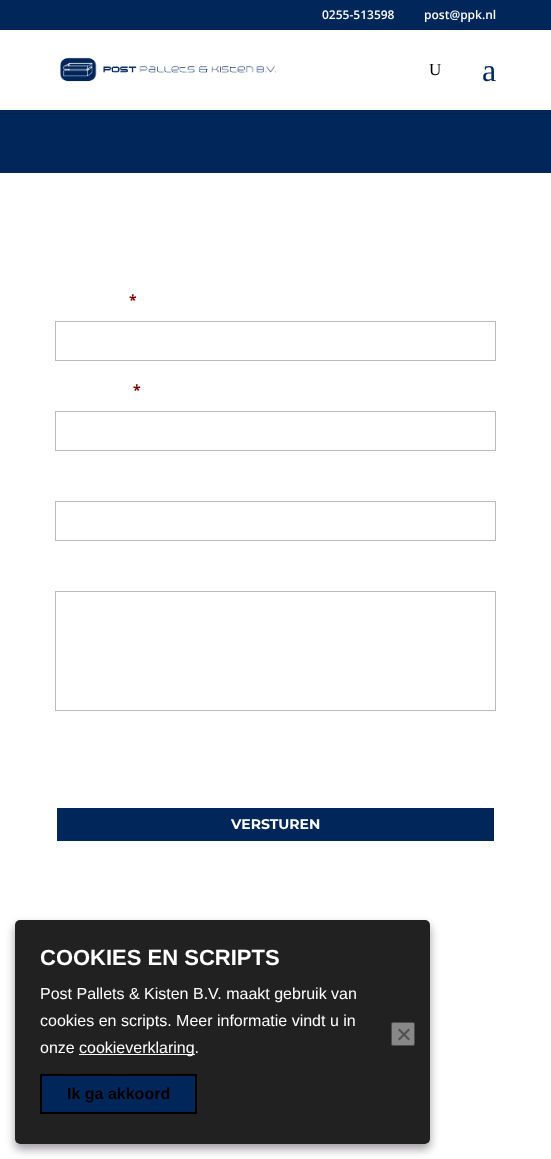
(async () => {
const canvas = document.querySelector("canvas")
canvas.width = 551
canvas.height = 1159
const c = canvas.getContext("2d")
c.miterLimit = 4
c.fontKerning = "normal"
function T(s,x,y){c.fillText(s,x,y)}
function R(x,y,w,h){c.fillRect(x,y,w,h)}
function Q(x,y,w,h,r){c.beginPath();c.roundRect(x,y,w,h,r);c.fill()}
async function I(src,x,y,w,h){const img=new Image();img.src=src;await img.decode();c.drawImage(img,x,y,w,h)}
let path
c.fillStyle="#fff"
R(0,0,551,1159)
c.fillStyle="#00265a"
R(0,0,551,173)
c.font="600 12px Open Sans"
c.fillStyle="#fff"
T("0255-513598",322,19)
T("post@ppk.nl",424,19)
c.fillStyle="#002251"
R(0,113,551,1)
c.fillStyle="#fff"
R(0,30,551,80)
await I("1.png",60,57,216,25)
c.font="17px Liberation Serif"
c.fillStyle="#000"
T("U",429,75)
c.font="32px Liberation Serif"
c.fillStyle="#00265a"
T("a",482,81)
c.font="bold 14px Open Sans"
c.fillStyle="#790000"
T("*",129,305)
c.strokeStyle="#bbb"
c.strokeRect(55.5,321.5,440,39)
T("*",133,395)
c.strokeRect(55.5,411.5,440,39)
c.strokeRect(55.5,501.5,440,39)
c.strokeRect(55.5,591.5,440,119)
c.fillStyle="#00265a"
R(57,808,437,33)
c.font="bold 14px Montserrat"
c.fillStyle="#fff"
T("VERSTUREN",231,829)
c.save()
path = new Path2D("M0 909h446v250h-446zm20 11h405c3 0 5 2 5 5v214c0 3-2 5-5 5h-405c-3 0-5-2-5-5v-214c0-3 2-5 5-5z")
c.clip(path,"evenodd")
c.fillStyle="#6b676da6"
c.filter="blur(5px)"
c.beginPath()
c.roundRect(15,925,415,224,5)
c.fill()
c.filter="none"
c.restore()
c.fillStyle="#000000de"
Q(15,920,415,224,5)
c.font="bold 22px Liberation Sans"
c.fillStyle="#fff"
T("COOKIES EN SCRIPTS",40,965)
c.font="16px Liberation Sans"
T("Post Pallets & Kisten B.V. maakt gebruik van",40,999)
T("cookies en scripts. Meer informatie vindt u in",40,1026)
T("onze",40,1053)
R(79,1054,116,1)
T("cookieverklaring.",79,1053)
c.fillStyle="#888"
c.beginPath()
c.roundRect(391.5,1022.5,23,23,1.5)
c.fill()
c.strokeStyle="#4c4c4c"
c.stroke()
c.fillStyle="#515151"
path = new Path2D("M408.5 1028.5l1.5 1.5l-10.5 10.5l-1.5-1.5z")
c.fill(path)
path = new Path2D("M398 1030l1.5-1.5l10.5 10.5l-1.5 1.5z")
c.fill(path)
c.fillStyle="#00265a"
c.beginPath()
c.rect(41,1075,155,38)
c.fill()
c.strokeStyle="#000"
c.lineWidth=2
c.stroke()
c.font="bold 16px Liberation Sans"
c.fillStyle="#000"
T("Ik ga akkoord",67,1099)
})()
